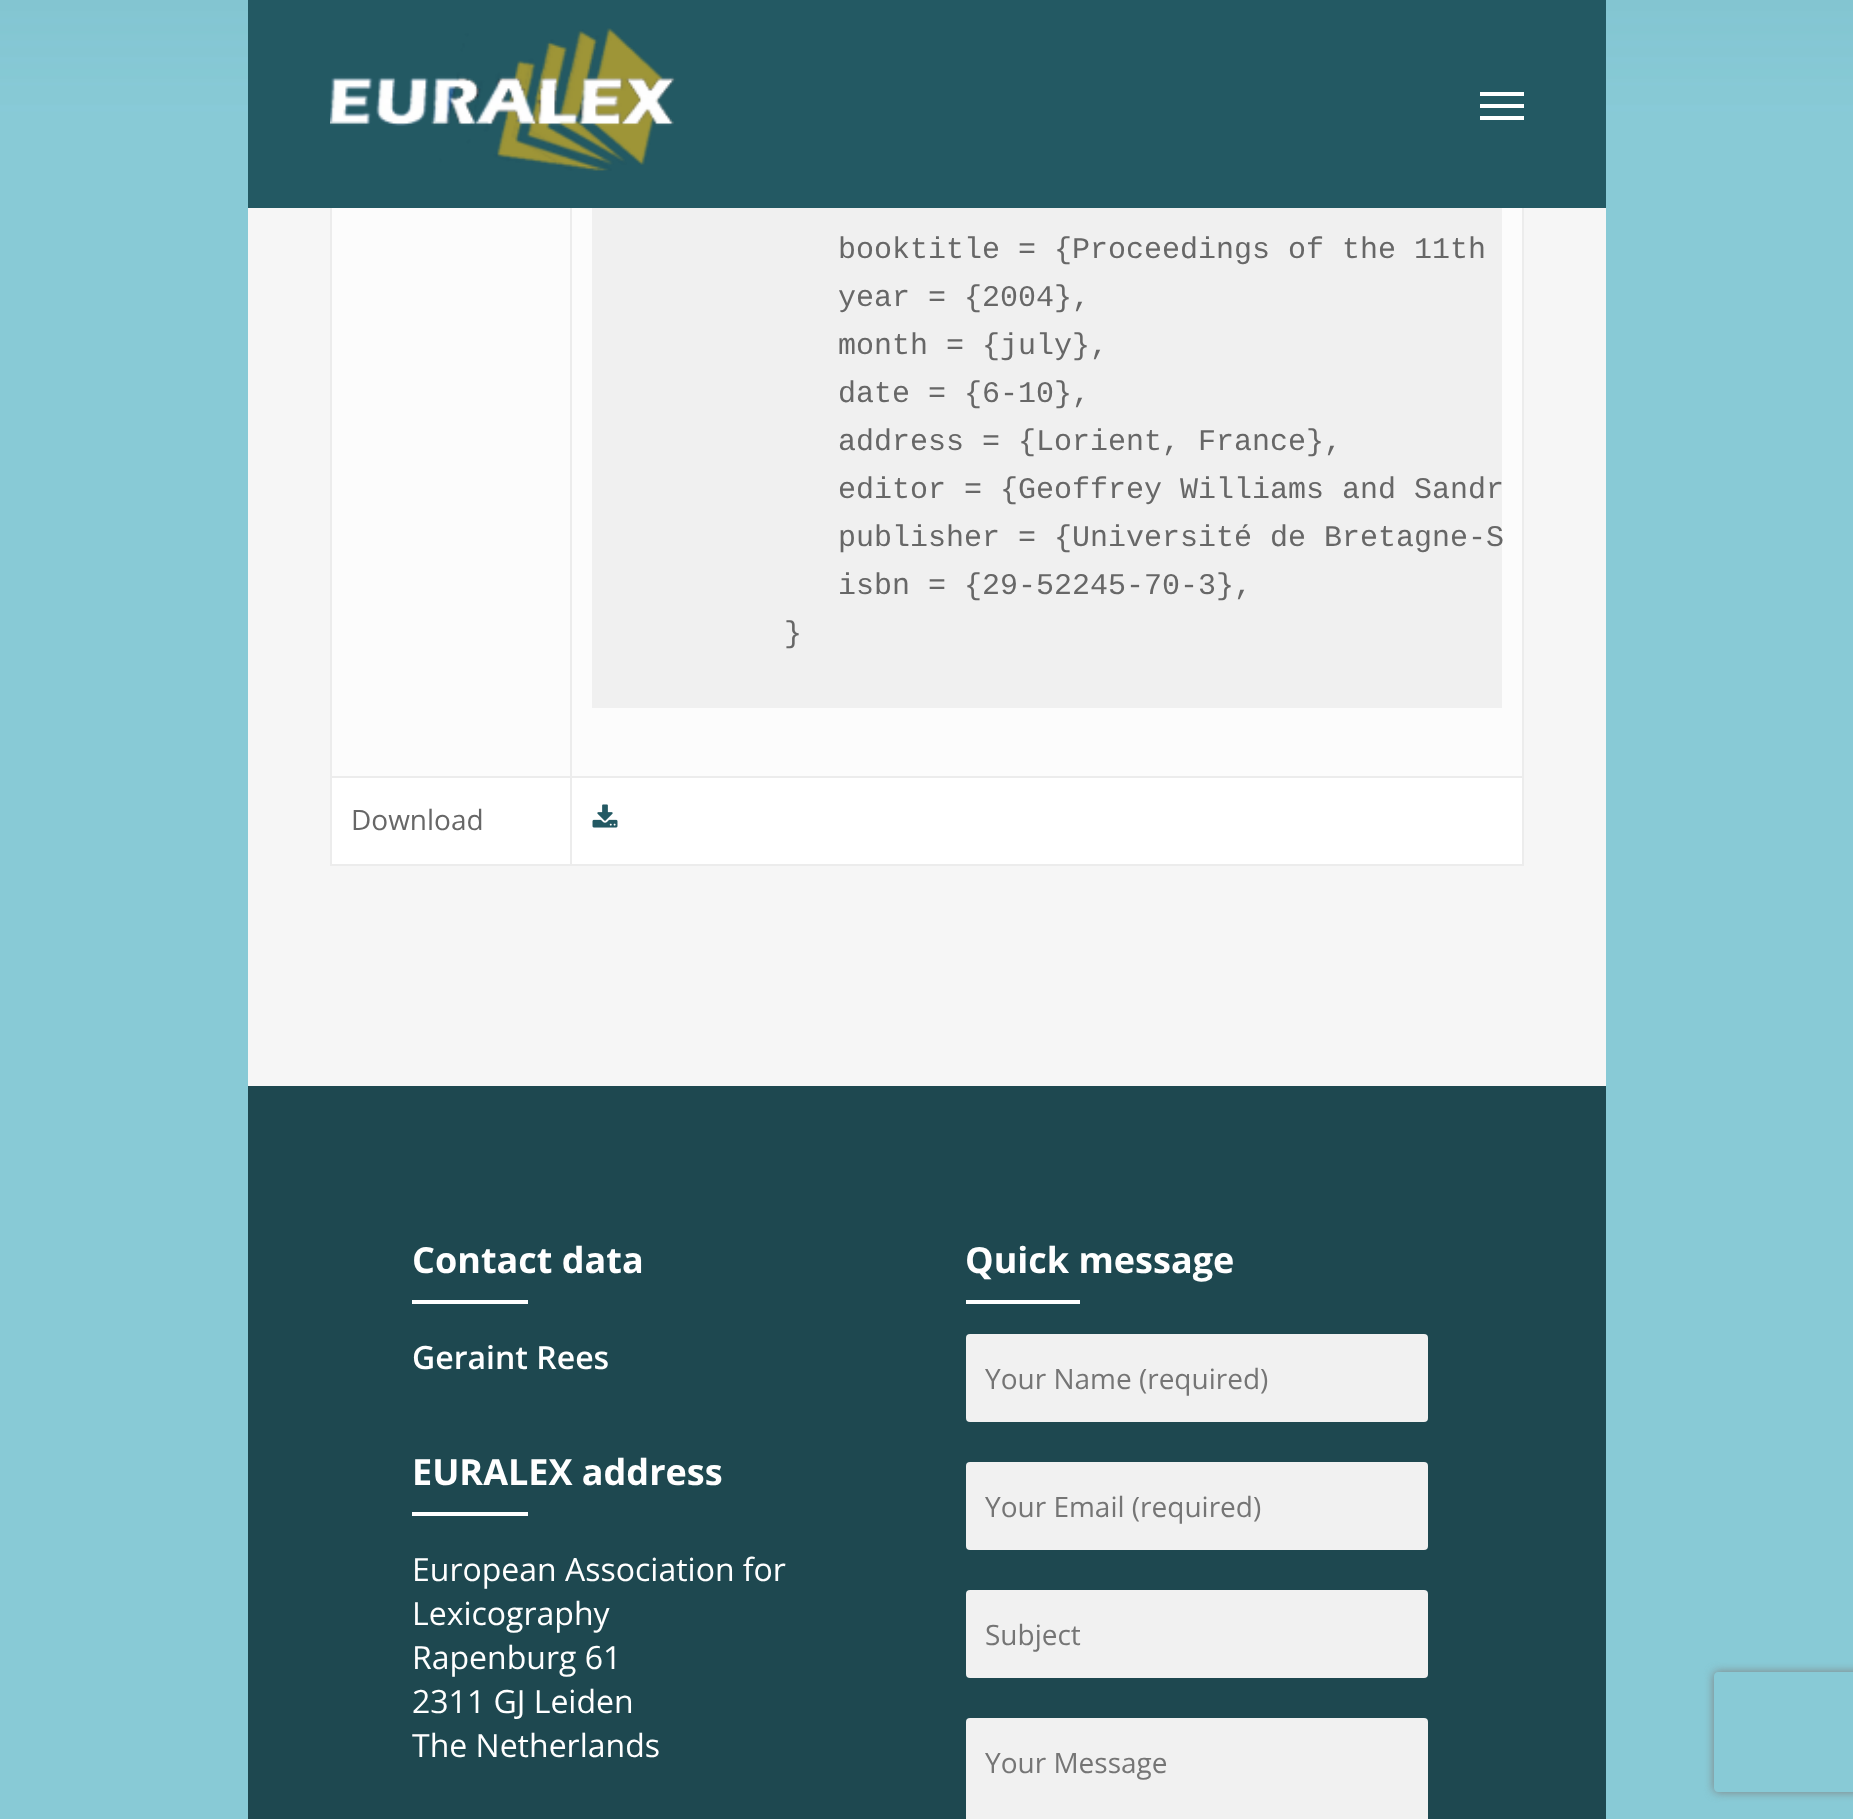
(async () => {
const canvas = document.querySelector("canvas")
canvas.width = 1853
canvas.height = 1819
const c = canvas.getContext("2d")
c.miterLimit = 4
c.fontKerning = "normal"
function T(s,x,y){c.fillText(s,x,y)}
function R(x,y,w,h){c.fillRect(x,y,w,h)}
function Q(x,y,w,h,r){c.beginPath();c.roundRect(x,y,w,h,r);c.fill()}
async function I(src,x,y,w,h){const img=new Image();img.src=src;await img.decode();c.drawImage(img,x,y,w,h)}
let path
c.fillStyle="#fff"
R(0,0,1853,1819)
await I("1.png",0,0,1853,1819)
c.fillStyle="#235963"
R(248,0,1358,208)
await I("2.png",330,28,346,143)
c.fillStyle="#fff"
R(1480,92,44,4)
R(1480,116,44,4)
R(1480,104,44,4)
c.fillStyle="#f6f6f6"
R(248,208,1358,878)
c.fillStyle="#fff"
R(332,778,1190,86)
c.fillStyle="#fcfcfc"
R(332,208,1190,568)
c.fillStyle="#ececec"
R(1522,208,2,658)
R(570,864,954,2)
R(570,776,2,90)
R(570,776,954,2)
R(570,208,2,570)
R(330,864,242,2)
R(330,776,2,90)
R(330,776,242,2)
R(330,208,2,570)
c.fillStyle="#f0f0f0"
R(592,208,910,500)
c.font="30px Liberation Mono"
c.fillStyle="#676767"
T("booktitle = {Proceedings of the 11th",838,258)
T("year = {2004},",838,306)
T("month = {july},",838,354)
T("date = {6-10},",838,402)
T("address = {Lorient, France},",838,450)
T("editor = {Geoffrey Williams and Sandr",838,498)
T("publisher = {Université de Bretagne-S",838,546)
T("isbn = {29-52245-70-3},",838,594)
T("}",784,642)
c.font="28px Open Sans"
T("Download",351,830)
await I("3.png",592,804,26,24)
c.fillStyle="#1e4850"
R(248,1086,1358,733)
c.font="bold 36px Open Sans"
c.fillStyle="#fff"
T("Contact data",412,1273)
R(412,1300,116,4)
c.font="600 32px Open Sans"
T("Geraint Rees",412,1369)
c.font="bold 36px Open Sans"
T("EURALEX address",412,1485)
R(412,1512,116,4)
c.font="32px Open Sans"
T("European Association for",412,1581)
T("Lexicography",412,1625)
T("Rapenburg 61",412,1669)
T("2311 GJ Leiden",412,1713)
T("The Netherlands",412,1757)
c.font="bold 36px Open Sans"
T("Quick message",965,1273)
R(966,1300,114,4)
c.fillStyle="#f1f1f1"
Q(966,1334,462,88,4)
c.font="28px Open Sans"
c.fillStyle="#757575"
T("Your Name (required)",985,1389)
c.fillStyle="#f1f1f1"
Q(966,1462,462,88,4)
c.fillStyle="#757575"
T("Your Email (required)",985,1517)
c.fillStyle="#f1f1f1"
Q(966,1590,462,88,4)
c.fillStyle="#757575"
T("Subject",985,1645)
c.fillStyle="#f1f1f1"
Q(966,1718,462,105,4)
c.fillStyle="#757575"
T("Your Message",985,1773)
c.save()
path = new Path2D("M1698 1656h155v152h-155zm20 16h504c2 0 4 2 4 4v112c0 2-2 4-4 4h-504c-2 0-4-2-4-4v-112c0-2 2-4 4-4z")
c.clip(path,"evenodd")
c.fillStyle="#808080"
c.filter="blur(5px)"
c.beginPath()
c.roundRect(1714,1672,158,120,4)
c.fill()
c.filter="none"
c.restore()
})()
